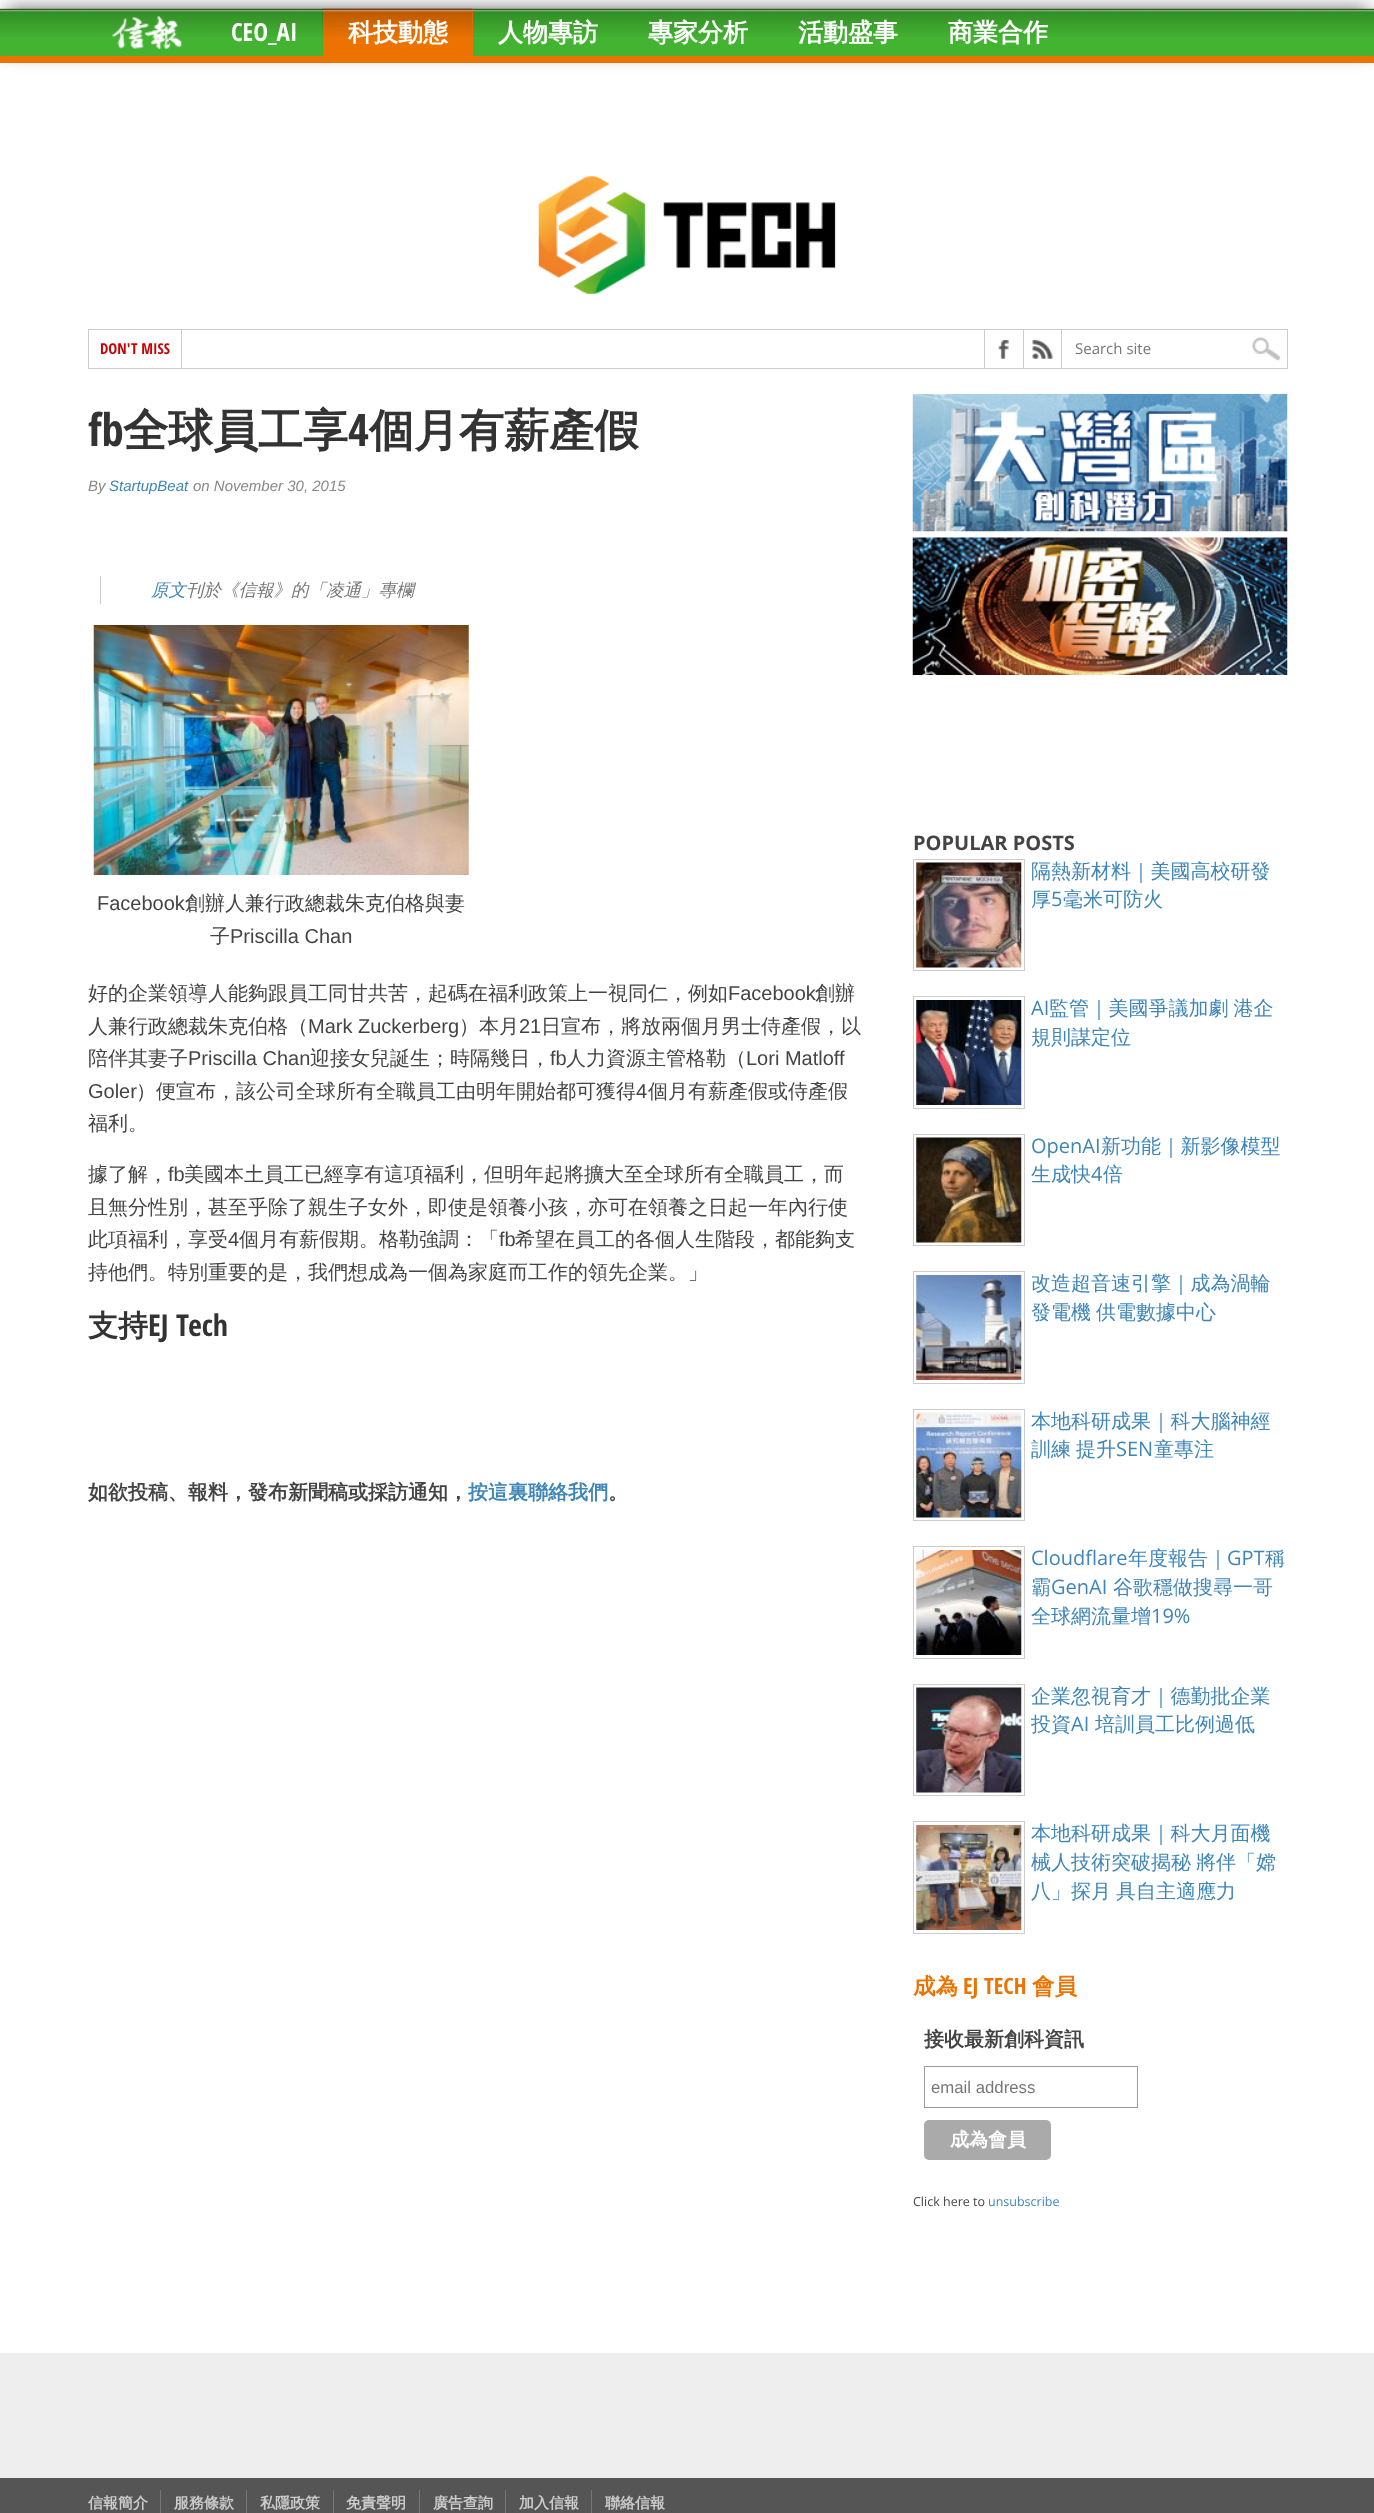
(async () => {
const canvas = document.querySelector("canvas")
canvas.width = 1374
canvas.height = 2513
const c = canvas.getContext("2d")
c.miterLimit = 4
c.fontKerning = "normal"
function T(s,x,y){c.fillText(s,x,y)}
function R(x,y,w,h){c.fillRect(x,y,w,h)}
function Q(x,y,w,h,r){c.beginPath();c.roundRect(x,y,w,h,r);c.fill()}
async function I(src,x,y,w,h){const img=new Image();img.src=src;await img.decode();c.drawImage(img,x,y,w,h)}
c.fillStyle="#fff"
R(0,0,1374,2513)
c.fillStyle="#555"
c.filter="blur(9.5px)"
c.beginPath()
c.rect(6,10,1363,41)
c.fill()
c.filter="none"
c.fillStyle="#43b332"
R(0,9,1374,47)
await I("1.png",0,8,1374,29)
c.fillStyle="#ed7300"
R(0,56,1374,7)
await I("2.png",112,16,70,33)
c.font="bold 25px Open Sans Condensed"
c.fillStyle="#fff"
T("CEO_AI",231,41)
c.fillStyle="#ed7300"
R(323,9,150,47)
await I("3.png",322,8,151,29)
c.font="bold 25px WenQuanYi Zen Hei"
c.fillStyle="#fff"
T("科技動態",348,41)
T("人物專訪",498,41)
T("專家分析",648,41)
T("活動盛事",798,41)
T("商業合作",948,41)
await I("4.png",538,176,298,118)
c.strokeStyle="#ccc"
c.strokeRect(88.5,329.5,1199,39)
c.fillStyle="#ccc"
R(181,330,1,38)
c.font="bold 15px Open Sans Condensed"
c.fillStyle="#ca0002"
T("DON'T MISS",100,354)
c.fillStyle="#ccc"
R(984,330,1,38)
await I("5.png",998,339,11,20)
R(1023,330,1,38)
await I("6.png",1032,339,21,20)
R(1061,330,1,38)
await I("7.png",1252,337,29,24)
c.font="15px Open Sans"
c.fillStyle="#777"
T("Search site",1075,354)
c.font="bold 45px Open Sans Condensed"
c.fillStyle="#333"
T("fb",88,446)
c.font="bold 45px WenQuanYi Zen Hei"
T("全球員工享",123,446)
c.font="bold 45px Open Sans Condensed"
T("4",348,446)
c.font="bold 45px WenQuanYi Zen Hei"
T("個月有薪產假",369,446)
c.font="italic 15px Liberation Sans"
c.fillStyle="#888"
T("By",88,491)
c.fillStyle="#3e85b8"
T("StartupBeat",109,491)
c.fillStyle="#888"
T("on November 30, 2015",193,491)
c.fillStyle="#ccc"
R(100,576,1,28)
c.font="italic 500 17.5px WenQuanYi Zen Hei"
c.fillStyle="#3e85b8"
T("原文",151,596)
c.fillStyle="#777"
T("刊於《信報》的「凌通」專欄",186,596)
await I("8.png",93,625,376,250)
c.font="20px Liberation Sans"
c.fillStyle="#444"
T("Facebook",97,910)
c.font="500 20px WenQuanYi Zen Hei"
T("創辦人兼行政總裁朱克伯格與妻",185,910)
T("子",210,943)
c.font="20px Liberation Sans"
T("Priscilla Chan",230,943)
c.font="500 20px WenQuanYi Zen Hei"
T("好的企業領導人能夠跟員工同甘共苦，起碼在福利政策上一視同仁，例如",88,1000)
c.font="20px Liberation Sans"
T("Facebook",728,1000)
c.font="500 20px WenQuanYi Zen Hei"
T("創辦",815,1000)
T("人兼行政總裁朱克伯格（",88,1033)
c.font="20px Liberation Sans"
T("Mark Zuckerberg",308,1033)
c.font="500 20px WenQuanYi Zen Hei"
T("）本月",459,1033)
c.font="20px Liberation Sans"
T("21",519,1033)
c.font="500 20px WenQuanYi Zen Hei"
T("日宣布，將放兩個月男士侍產假，以",541,1033)
T("陪伴其妻子",88,1065)
c.font="20px Liberation Sans"
T("Priscilla Chan",188,1065)
c.font="500 20px WenQuanYi Zen Hei"
T("迎接女兒誕生；時隔幾日，",310,1065)
c.font="20px Liberation Sans"
T("fb",550,1065)
c.font="500 20px WenQuanYi Zen Hei"
T("人力資源主管格勒（",566,1065)
c.font="20px Liberation Sans"
T("Lori Matloff",746,1065)
T("Goler",88,1098)
c.font="500 20px WenQuanYi Zen Hei"
T("）便宣布，該公司全球所有全職員工由明年開始都可獲得",136,1098)
c.font="20px Liberation Sans"
T("4",636,1098)
c.font="500 20px WenQuanYi Zen Hei"
T("個月有薪產假或侍產假",648,1098)
T("福利。",88,1130)
T("據了解，",88,1181)
c.font="20px Liberation Sans"
T("fb",168,1181)
c.font="500 20px WenQuanYi Zen Hei"
T("美國本土員工已經享有這項福利，但明年起將擴大至全球所有全職員工，而",184,1181)
T("且無分性別，甚至乎除了親生子女外，即使是領養小孩，亦可在領養之日起一年內行使",88,1214)
T("此項福利，享受",88,1246)
c.font="20px Liberation Sans"
T("4",228,1246)
c.font="500 20px WenQuanYi Zen Hei"
T("個月有薪假期。格勒強調：「",239,1246)
c.font="20px Liberation Sans"
T("fb",499,1246)
c.font="500 20px WenQuanYi Zen Hei"
T("希望在員工的各個人生階段，都能夠支",515,1246)
T("持他們。特別重要的是，我們想成為一個為家庭而工作的領先企業。」",88,1279)
c.font="bold 30px WenQuanYi Zen Hei"
c.fillStyle="#333"
T("支持",88,1336)
c.font="bold 30px Open Sans Condensed"
T("EJ Tech",148,1336)
c.font="bold 20px WenQuanYi Zen Hei"
c.fillStyle="#444"
T("如欲投稿、報料，發布新聞稿或採訪通知，",88,1499)
c.fillStyle="#3e85b8"
T("按這裏聯絡我們",468,1499)
c.fillStyle="#444"
T("。",608,1499)
await I("9.png",912,393,376,139)
await I("10.png",912,537,376,138)
c.font="bold 20px Open Sans"
T("POPULAR POSTS",913,850)
c.strokeRect(913.5,859.5,111,111)
await I("11.png",916,862,106,106)
c.font="500 20px WenQuanYi Zen Hei"
c.fillStyle="#3e85b8"
T("隔熱新材料｜美國高校研發",1031,878)
T("厚",1031,906)
c.font="20px Open Sans"
T("5",1051,906)
c.font="500 20px WenQuanYi Zen Hei"
T("毫米可防火",1063,906)
c.strokeRect(913.5,996.5,111,112)
await I("12.png",916,1000,106,105)
c.font="20px Open Sans"
T("AI",1031,1015)
c.wordSpacing="-1px"
c.font="500 20px WenQuanYi Zen Hei"
T("監管｜美國爭議加劇 港企",1049,1015)
c.wordSpacing="0px"
T("規則謀定位",1031,1044)
c.strokeRect(913.5,1134.5,111,111)
await I("13.png",916,1137,106,106)
c.font="20px Open Sans"
T("OpenAI",1031,1153)
c.font="500 20px WenQuanYi Zen Hei"
T("新功能｜新影像模型",1101,1153)
T("生成快",1031,1181)
c.font="20px Open Sans"
T("4",1091,1181)
c.font="500 20px WenQuanYi Zen Hei"
T("倍",1103,1181)
c.strokeRect(913.5,1271.5,111,112)
await I("14.png",916,1275,106,105)
T("改造超音速引擎｜成為渦輪",1031,1290)
c.wordSpacing="-1px"
T("發電機 供電數據中心",1031,1319)
c.strokeRect(913.5,1409.5,111,111)
await I("15.png",916,1412,106,106)
c.wordSpacing="0px"
T("本地科研成果｜科大腦神經",1031,1428)
c.wordSpacing="-1px"
T("訓練 提升",1031,1456)
c.wordSpacing="0px"
c.font="20px Open Sans"
T("SEN",1116,1456)
c.font="500 20px WenQuanYi Zen Hei"
T("童專注",1154,1456)
c.strokeRect(913.5,1546.5,111,112)
await I("16.png",916,1550,106,105)
c.font="20px Open Sans"
T("Cloudflare",1031,1565)
c.font="500 20px WenQuanYi Zen Hei"
T("年度報告｜",1128,1565)
c.font="20px Open Sans"
T("GPT",1227,1565)
c.font="500 20px WenQuanYi Zen Hei"
T("稱",1265,1565)
T("霸",1031,1594)
c.font="20px Open Sans"
T("GenAI",1051,1594)
c.font="500 20px WenQuanYi Zen Hei"
T("谷歌穩做搜尋一哥",1113,1594)
T("全球網流量增",1031,1623)
c.font="20px Open Sans"
T("19%",1151,1623)
c.strokeRect(913.5,1684.5,111,111)
await I("17.png",916,1687,106,106)
c.font="500 20px WenQuanYi Zen Hei"
T("企業忽視育才｜德勤批企業",1031,1703)
T("投資",1031,1731)
c.font="20px Open Sans"
T("AI",1071,1731)
c.font="500 20px WenQuanYi Zen Hei"
T("培訓員工比例過低",1095,1731)
c.strokeRect(913.5,1821.5,111,112)
await I("18.png",916,1825,106,105)
T("本地科研成果｜科大月面機",1031,1840)
c.wordSpacing="-1px"
T("械人技術突破揭秘 將伴「嫦",1031,1869)
T("八」探月 具自主適應力",1031,1898)
c.wordSpacing="0px"
c.font="bold 22.5px WenQuanYi Zen Hei"
c.fillStyle="#ed7300"
T("成為",913,1994)
c.font="bold 22.5px Open Sans Condensed"
T("EJ TECH",963,1994)
c.font="bold 22.5px WenQuanYi Zen Hei"
T("會員",1032,1994)
c.font="bold 20px WenQuanYi Zen Hei"
c.fillStyle="#444"
T("接收最新創科資訊",924,2046)
c.strokeStyle="#999"
c.strokeRect(924.5,2066.5,213,41)
c.font="16.75px Liberation Sans"
c.fillStyle="#777"
T("email address",931,2093)
c.fillStyle="#aaa"
Q(924,2120,127,40,5)
c.font="bold 19px WenQuanYi Zen Hei"
c.fillStyle="#fff"
T("成為會員",950,2146)
c.font="12.5px Open Sans"
c.fillStyle="#444"
T("Click here to",913,2206)
c.fillStyle="#3e85b8"
T("unsubscribe",988,2206)
c.fillStyle="#eee"
R(0,2353,1374,125)
c.fillStyle="#555"
R(0,2478,1374,35)
c.fillStyle="#777"
R(160,2490,1,23)
c.font="bold 15px WenQuanYi Zen Hei"
c.fillStyle="#ccc"
T("信報簡介",88,2508)
c.fillStyle="#777"
R(246,2490,1,23)
c.fillStyle="#ccc"
T("服務條款",174,2508)
c.fillStyle="#777"
R(333,2490,1,23)
c.fillStyle="#ccc"
T("私隱政策",260,2508)
c.fillStyle="#777"
R(419,2490,1,23)
c.fillStyle="#ccc"
T("免責聲明",346,2508)
c.fillStyle="#777"
R(505,2490,1,23)
c.fillStyle="#ccc"
T("廣告查詢",433,2508)
c.fillStyle="#777"
R(591,2490,1,23)
c.fillStyle="#ccc"
T("加入信報",519,2508)
T("聯絡信報",605,2508)
})()
